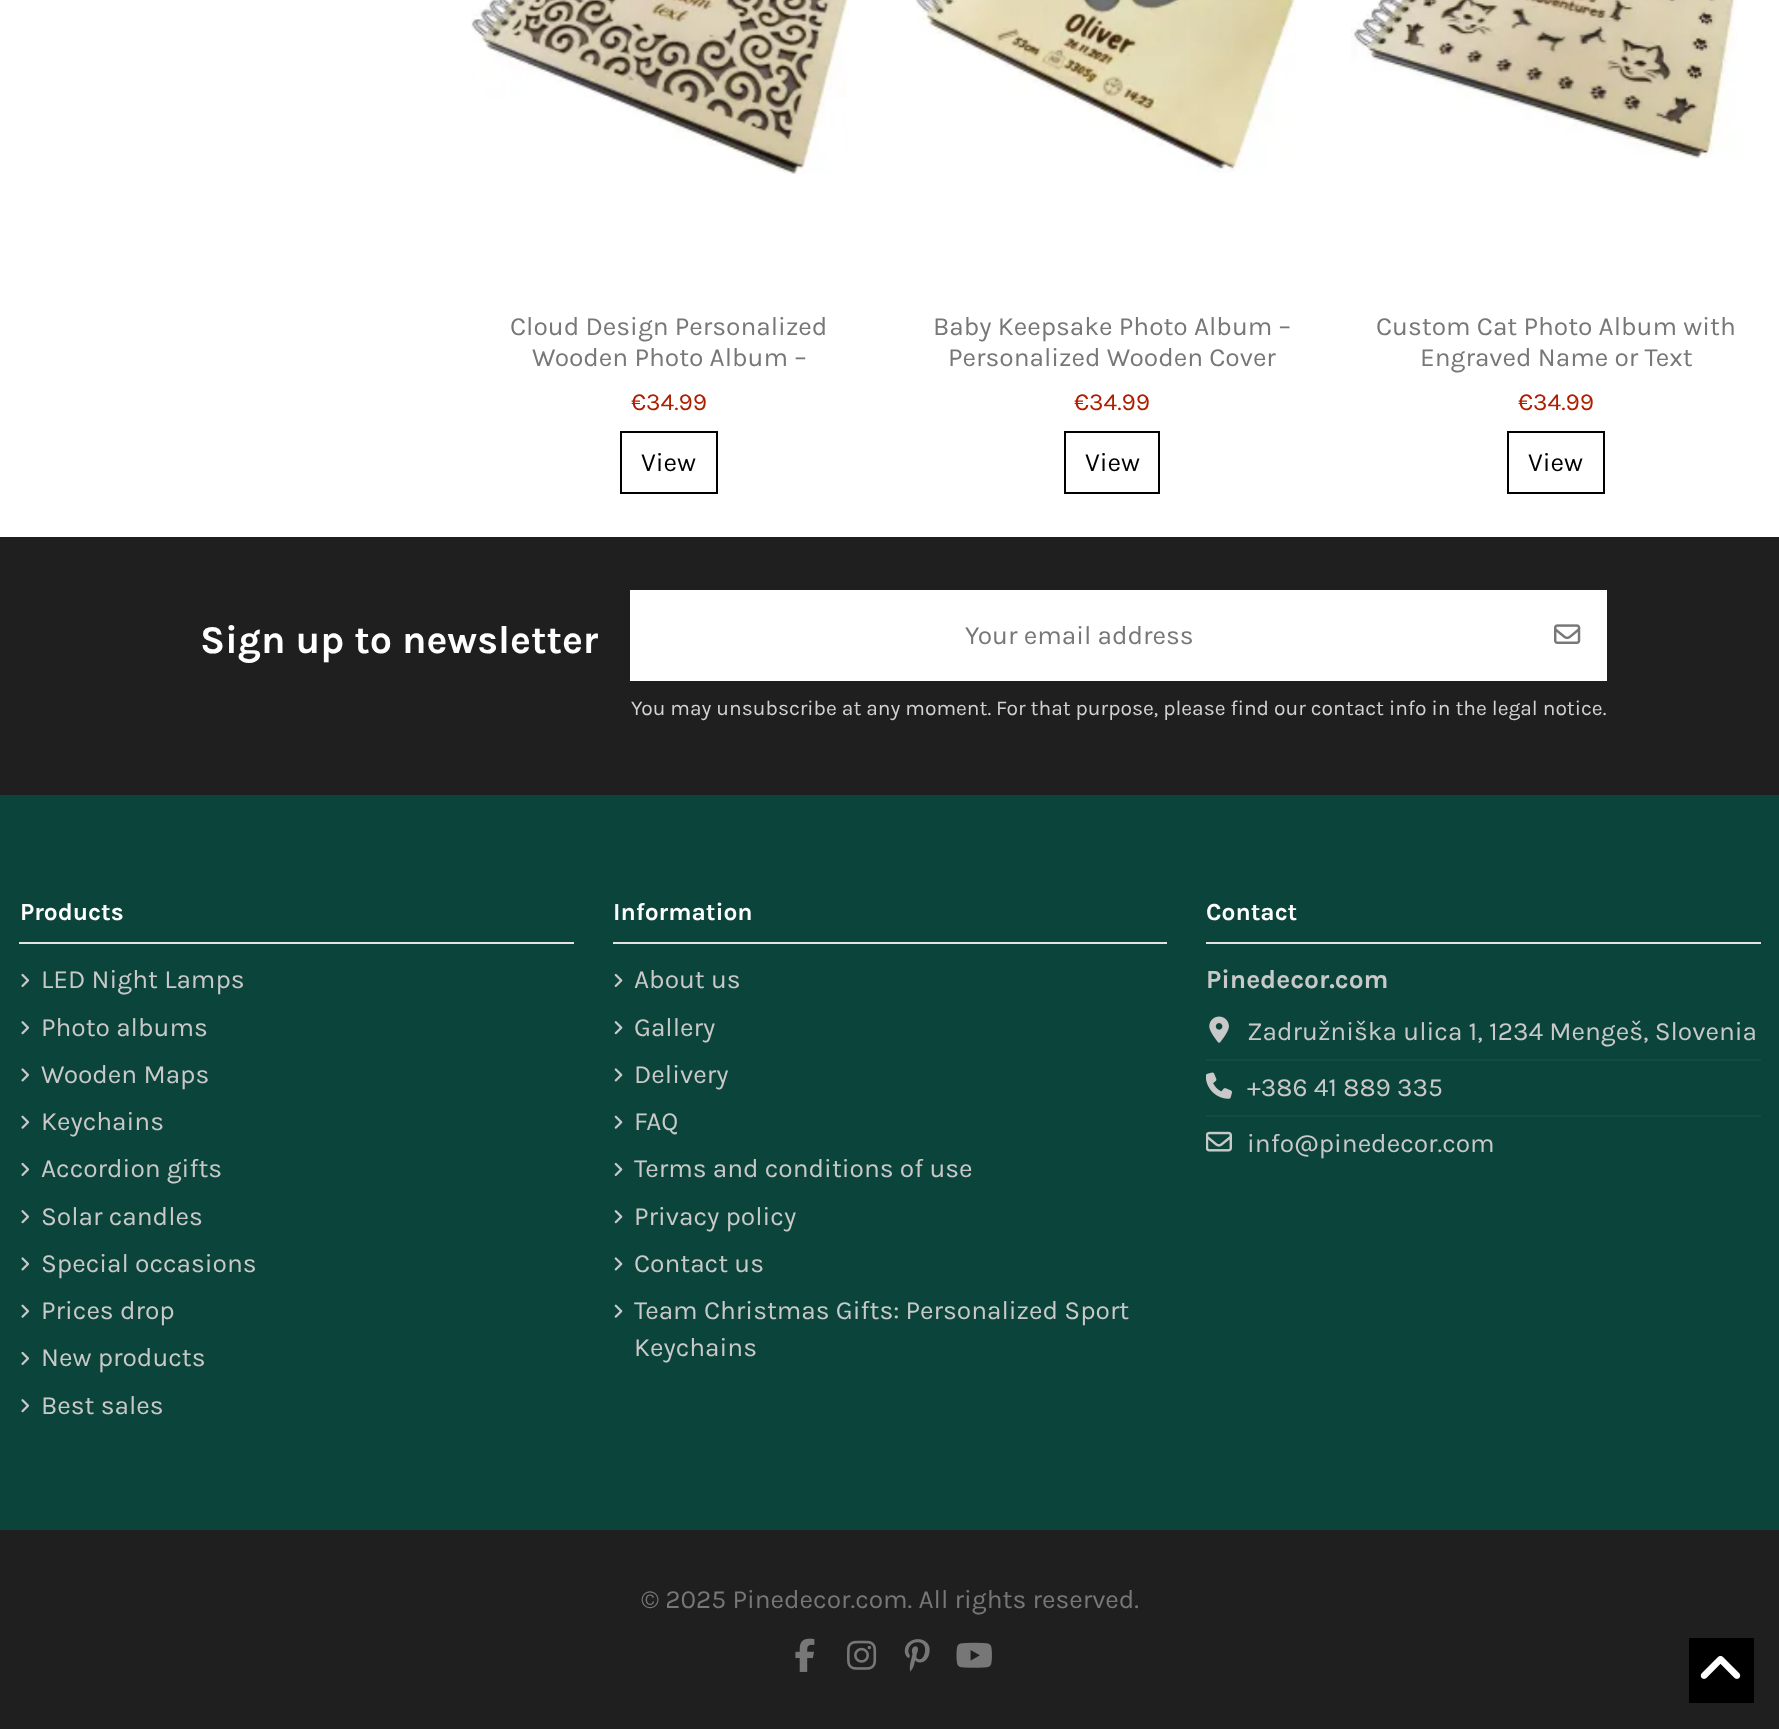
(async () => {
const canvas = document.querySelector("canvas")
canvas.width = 1779
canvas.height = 1729
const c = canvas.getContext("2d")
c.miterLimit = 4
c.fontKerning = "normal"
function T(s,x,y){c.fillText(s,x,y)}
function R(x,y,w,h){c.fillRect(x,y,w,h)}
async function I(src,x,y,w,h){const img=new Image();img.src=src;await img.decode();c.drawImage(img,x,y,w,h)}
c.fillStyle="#fff"
R(0,0,1779,1729)
await I("1.png",471,0,378,174)
c.font="26.25px Karla"
c.fillStyle="#777"
T("Cloud Design Personalized",510,335)
T("Wooden Photo Album –",532,366)
c.font="24.5px Karla"
c.fillStyle="#ad1f00"
T("€34.99",631,410)
c.strokeStyle="#000"
c.lineWidth=2
c.strokeRect(621,432,96,61)
c.font="26.25px Karla"
c.fillStyle="#000"
T("View",641,471)
await I("2.png",915,0,381,173)
c.fillStyle="#777"
T("Baby Keepsake Photo Album –",933,335)
T("Personalized Wooden Cover",948,366)
c.font="24.5px Karla"
c.fillStyle="#ad1f00"
T("€34.99",1074,410)
c.strokeRect(1065,432,94,61)
c.font="26.25px Karla"
c.fillStyle="#000"
T("View",1085,471)
await I("3.png",1351,0,386,159)
c.fillStyle="#777"
T("Custom Cat Photo Album with",1376,335)
T("Engraved Name or Text",1420,366)
c.font="24.5px Karla"
c.fillStyle="#ad1f00"
T("€34.99",1518,410)
c.strokeRect(1508,432,96,61)
c.font="26.25px Karla"
c.fillStyle="#000"
T("View",1528,471)
c.fillStyle="#0b443b"
R(0,795,1779,735)
c.fillStyle="#1f1f1f"
R(0,537,1779,258)
c.font="bold 39.4px Karla"
c.fillStyle="#fff"
T("Sign up to newsletter",200,653)
R(630,590,977,91)
c.font="26.25px Karla"
c.fillStyle="#777"
T("Your email address",965,644)
await I("4.png",1554,624,27,20)
c.font="21px Karla"
c.fillStyle="#d2d2d2"
T("You may unsubscribe at any moment. For that purpose, please find our contact info in the legal notice.",631,715)
c.fillStyle="#e3e3e3"
R(19,942,555,2)
c.font="bold 24.5px Karla"
c.fillStyle="#fff"
T("Products",20,920)
await I("5.png",21,973,9,14)
c.font="26.25px Karla"
c.fillStyle="#c9c9c9"
T("LED Night Lamps",41,988)
await I("6.png",21,1021,9,14)
T("Photo albums",41,1036)
await I("7.png",21,1068,9,14)
T("Wooden Maps",41,1083)
await I("8.png",21,1115,9,14)
T("Keychains",41,1130)
await I("5.png",21,1162,9,14)
T("Accordion gifts",41,1177)
await I("6.png",21,1210,9,14)
T("Solar candles",41,1225)
await I("7.png",21,1257,9,14)
T("Special occasions",41,1272)
await I("8.png",21,1304,9,14)
T("Prices drop",41,1319)
await I("5.png",21,1351,9,14)
T("New products",41,1366)
await I("6.png",21,1399,9,14)
T("Best sales",41,1414)
c.fillStyle="#e3e3e3"
R(613,942,554,2)
c.font="bold 24.5px Karla"
c.fillStyle="#fff"
T("Information",613,920)
await I("9.png",614,973,9,14)
c.font="26.25px Karla"
c.fillStyle="#c9c9c9"
T("About us",634,988)
await I("10.png",614,1021,9,14)
T("Gallery",634,1036)
await I("11.png",614,1068,9,14)
T("Delivery",634,1083)
await I("12.png",614,1115,9,14)
T("FAQ",634,1130)
await I("9.png",614,1162,9,14)
T("Terms and conditions of use",634,1177)
await I("10.png",614,1210,9,14)
T("Privacy policy",634,1225)
await I("11.png",614,1257,9,14)
T("Contact us",634,1272)
await I("12.png",614,1304,9,14)
T("Team Christmas Gifts: Personalized Sport",634,1319)
T("Keychains",634,1356)
c.fillStyle="#e3e3e3"
R(1206,942,555,2)
c.font="bold 24.5px Karla"
c.fillStyle="#fff"
T("Contact",1206,920)
c.font="bold 26.25px Karla"
c.fillStyle="#c9c9c9"
T("Pinedecor.com",1206,988)
await I("13.png",1209,1016,20,27)
c.font="26.25px Karla"
T("Zadružniška ulica 1, 1234 Mengeš, Slovenia",1247,1040)
c.fillStyle="#144a41"
R(1206,1059,555,2)
await I("14.png",1206,1072,26,27)
c.fillStyle="#c9c9c9"
T("+386 41 889 335",1247,1096)
c.fillStyle="#144a41"
R(1206,1115,555,2)
await I("15.png",1206,1131,26,21)
c.fillStyle="#c9c9c9"
T("info@pinedecor.com",1247,1152)
c.fillStyle="#1f1f1f"
R(0,1530,1779,199)
c.fillStyle="#777"
T("© 2025 Pinedecor.com. All rights reserved.",641,1608)
await I("16.png",795,1638,20,34)
await I("17.png",847,1640,30,30)
await I("18.png",904,1639,26,33)
await I("19.png",956,1642,36,26)
c.fillStyle="#000"
R(1689,1638,65,65)
await I("20.png",1700,1655,41,24)
})()
